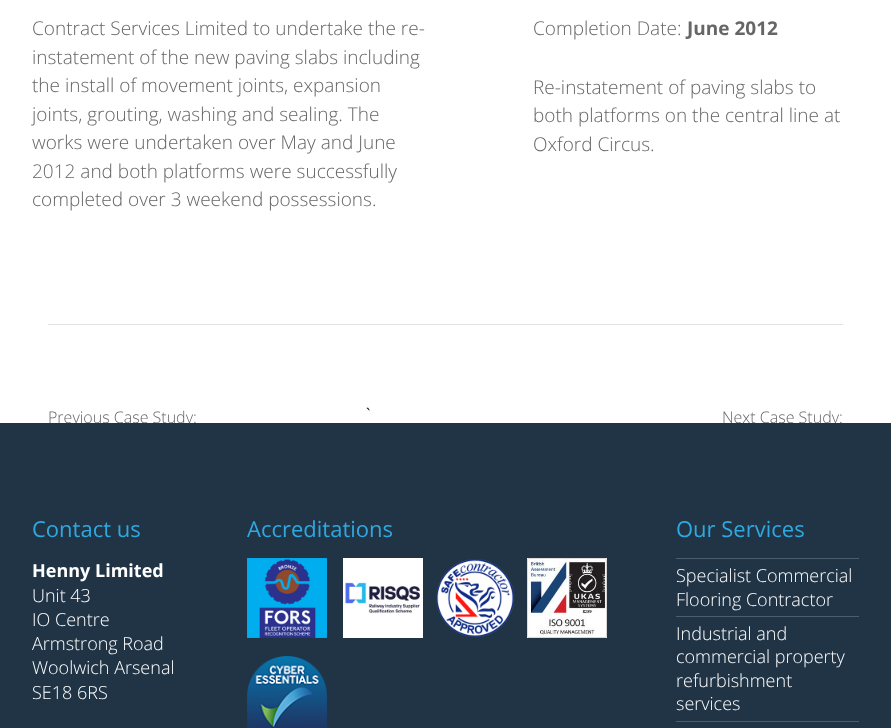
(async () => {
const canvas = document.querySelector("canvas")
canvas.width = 891
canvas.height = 728
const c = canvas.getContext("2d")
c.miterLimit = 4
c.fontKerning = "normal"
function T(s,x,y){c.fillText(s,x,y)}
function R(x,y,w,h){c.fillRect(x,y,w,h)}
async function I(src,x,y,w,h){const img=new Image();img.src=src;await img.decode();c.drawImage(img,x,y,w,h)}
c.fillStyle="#fff"
R(0,0,891,728)
c.font="300 19px Open Sans"
c.fillStyle="#666"
T("Contract Services Limited to undertake the re-",32,35)
T("instatement of the new paving slabs including",32,64)
T("the install of movement joints, expansion",32,92)
T("joints, grouting, washing and sealing. The",32,121)
T("works were undertaken over May and June",32,149)
T("2012 and both platforms were successfully",32,178)
T("completed over 3 weekend possessions.",32,206)
T("Completion Date:",533,35)
c.font="bold 19px Open Sans"
T("June 2012",687,35)
c.font="300 19px Open Sans"
T("Re-instatement of paving slabs to",533,94)
T("both platforms on the central line at",533,122)
T("Oxford Circus.",533,151)
c.fillStyle="#e1e2e3"
R(48,324,795,1)
c.font="300 16px Open Sans"
c.fillStyle="#666"
T("Previous Case Study:",48,423)
T("Next Case Study:",722,423)
c.font="16px Open Sans"
c.fillStyle="#000"
T("`",366,420)
c.fillStyle="#203446"
R(0,423,891,305)
c.font="22px Open Sans"
c.fillStyle="#2fa8df"
T("Contact us",32,537)
c.font="bold 18px Open Sans"
c.fillStyle="#fff"
T("Henny Limited",32,577)
c.font="300 18px Open Sans"
T("Unit 43",32,602)
T("IO Centre",32,626)
T("Armstrong Road",32,650)
T("Woolwich Arsenal",32,674)
T("SE18 6RS",32,699)
c.font="22px Open Sans"
c.fillStyle="#2fa8df"
T("Accreditations",247,537)
await I("1.png",247,558,80,80)
await I("2.png",343,558,80,80)
await I("3.png",436,559,79,79)
await I("4.png",527,558,80,80)
await I("5.png",247,656,80,72)
T("Our Services",676,537)
c.fillStyle="#4d5d6b"
R(676,558,183,1)
c.font="300 18px Open Sans"
c.fillStyle="#fff"
T("Specialist Commercial",676,582)
T("Flooring Contractor",676,606)
c.fillStyle="#4d5d6b"
R(676,616,183,1)
c.fillStyle="#fff"
T("Industrial and",676,640)
T("commercial property",676,663)
T("refurbishment",676,687)
T("services",676,710)
c.fillStyle="#4d5d6b"
R(676,721,183,1)
})()
